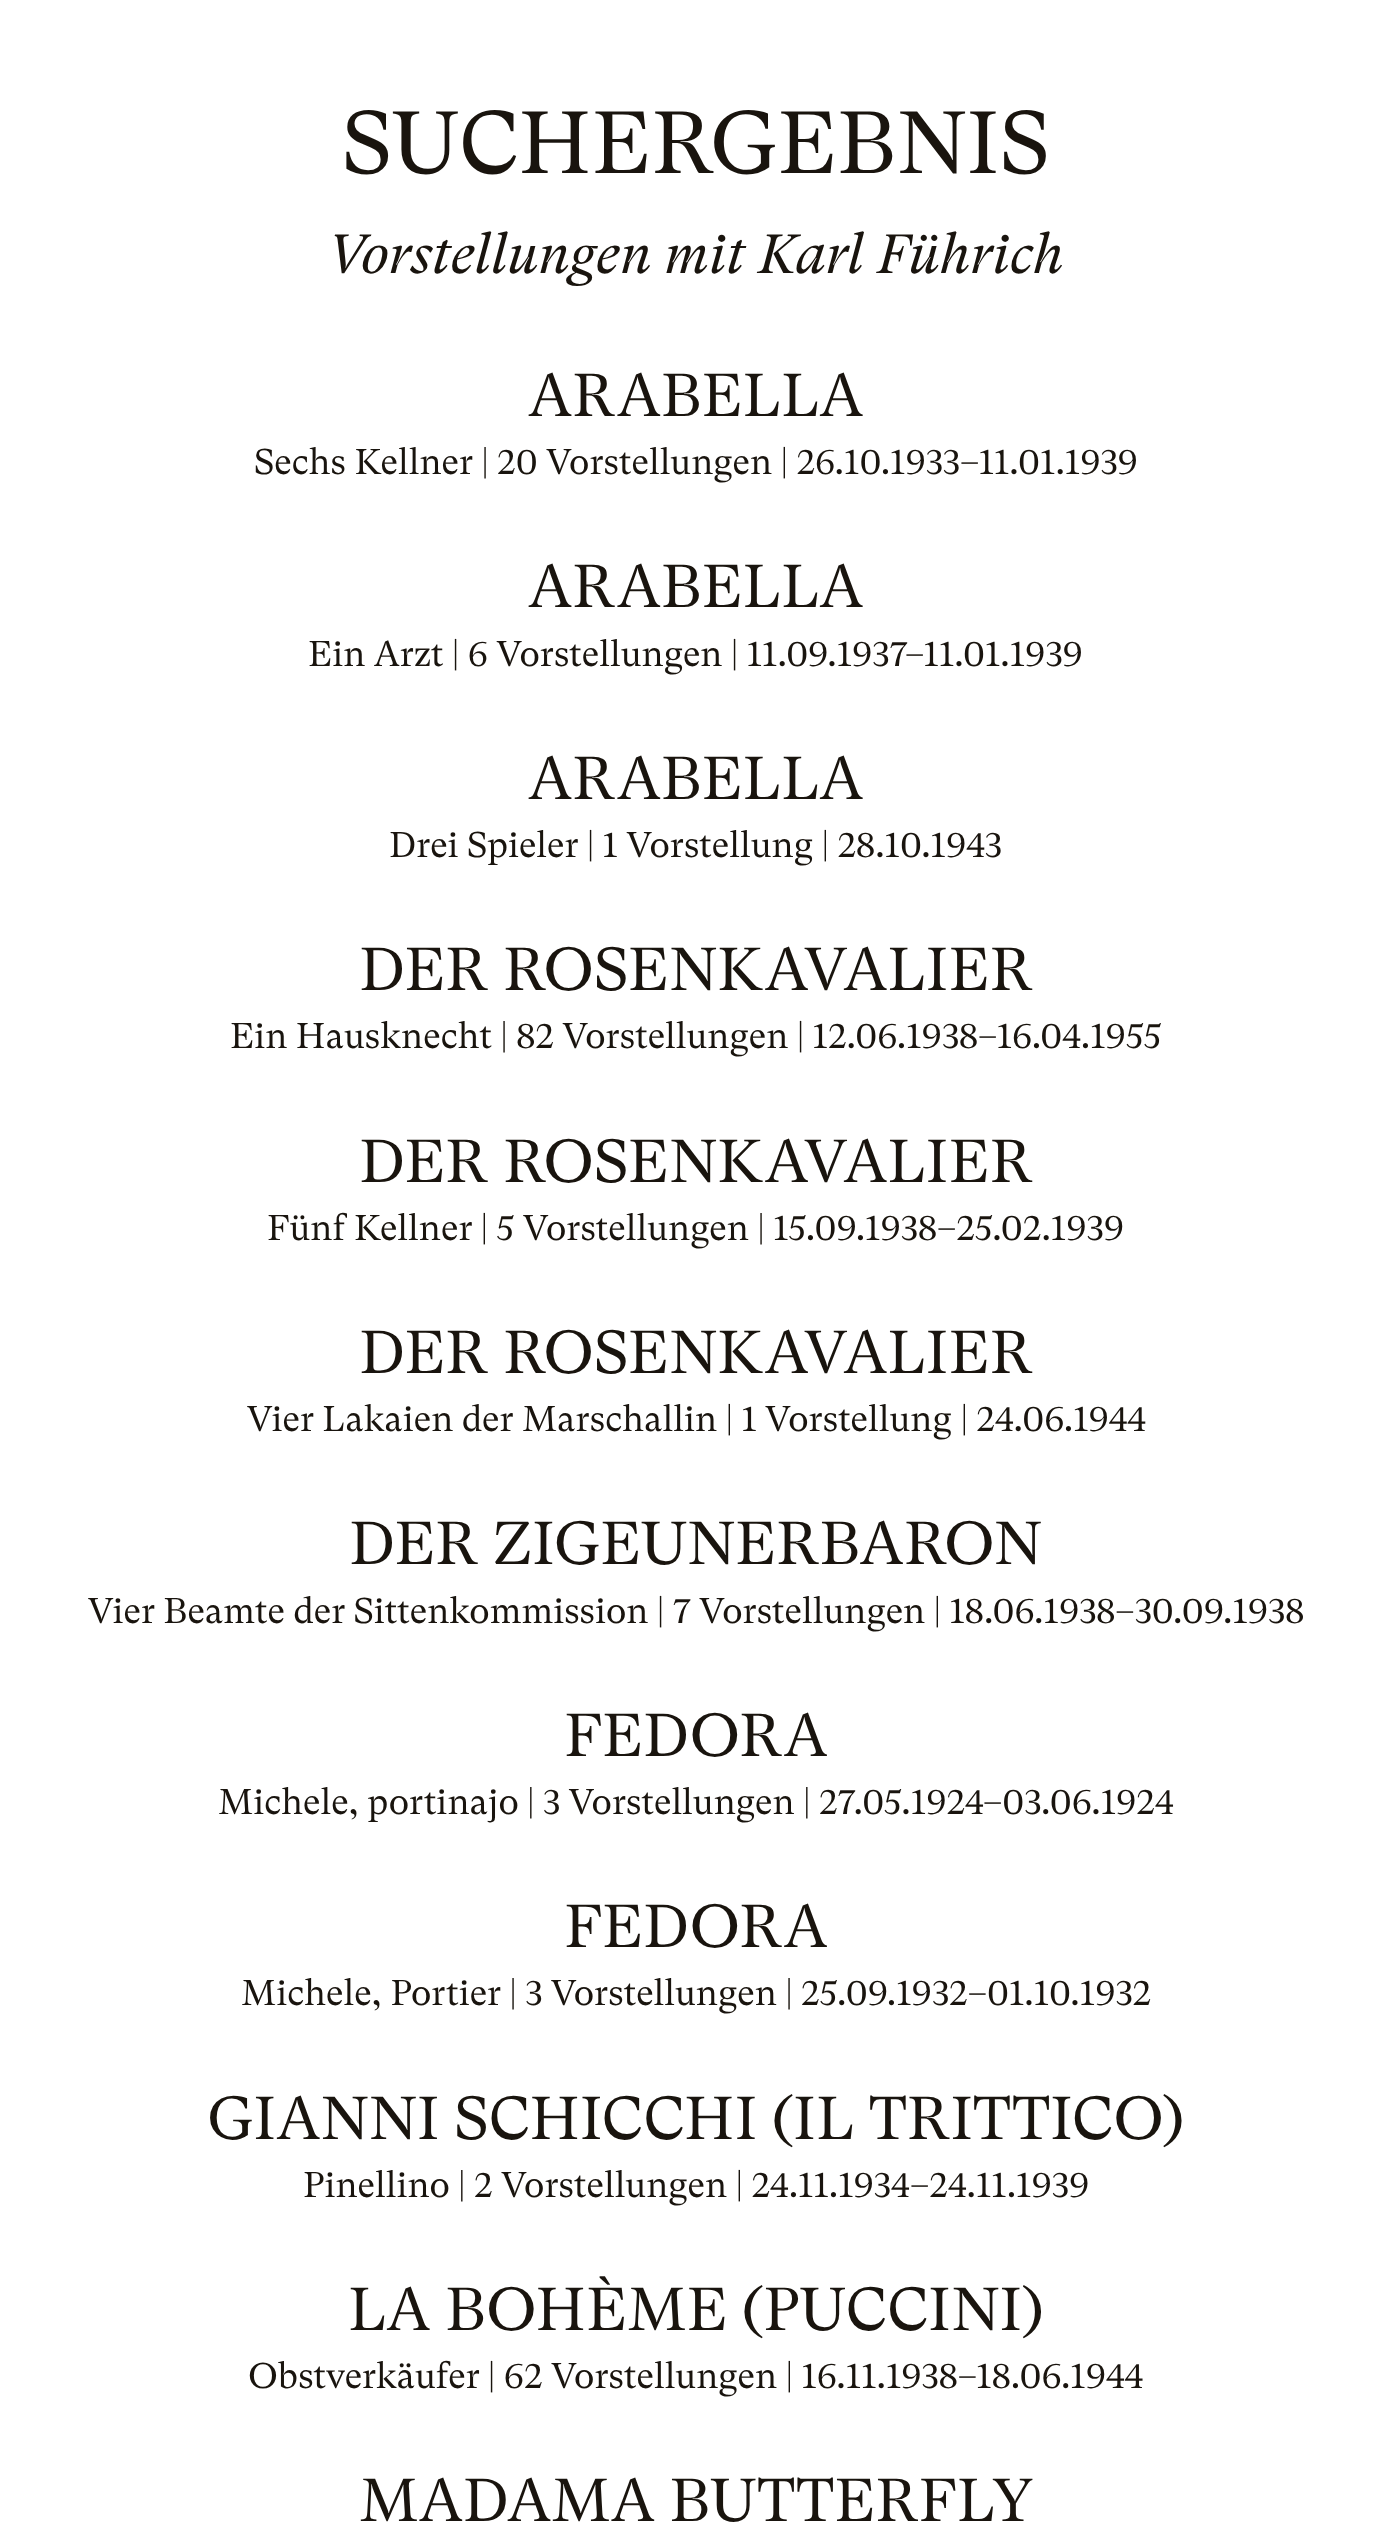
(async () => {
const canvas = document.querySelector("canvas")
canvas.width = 1389
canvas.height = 2536
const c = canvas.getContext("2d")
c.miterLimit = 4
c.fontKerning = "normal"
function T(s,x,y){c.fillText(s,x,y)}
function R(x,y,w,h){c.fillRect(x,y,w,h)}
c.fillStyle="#fff"
R(0,0,1389,2536)
c.font="88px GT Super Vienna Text"
c.fillStyle="#19140e"
T("SUCHERGEBNIS",342,173)
c.font="italic 55px GT Super Vienna Text"
T("Vorstellungen mit Karl Führich",328,273)
c.font="60.5px GT Super Vienna Text"
T("ARABELLA",528,416)
c.font="35.65px GT Super Vienna Text"
T("Sechs Kellner | 20 Vorstellungen | 26.10.1933–11.01.1939",254,474)
c.font="60.5px GT Super Vienna Text"
T("ARABELLA",528,607)
c.font="35.65px GT Super Vienna Text"
T("Ein Arzt | 6 Vorstellungen | 11.09.1937",308,666)
T("–11.01.1939",905,666)
c.font="60.5px GT Super Vienna Text"
T("ARABELLA",528,799)
c.font="35.65px GT Super Vienna Text"
T("Drei Spieler | 1 Vorstellung | 28.10.1943",389,857)
c.font="60.5px GT Super Vienna Text"
T("DER ROSENKAVALIER",359,990)
c.font="35.65px GT Super Vienna Text"
T("Ein Hausknecht | 82 Vorstellungen | 12.06.1938–16.04.1955",230,1048)
c.font="60.5px GT Super Vienna Text"
T("DER ROSENKAVALIER",359,1182)
c.font="35.65px GT Super Vienna Text"
T("Fünf Kellner | 5 Vorstellungen | 15.09.1938–25.02.1939",267,1240)
c.font="60.5px GT Super Vienna Text"
T("DER ROSENKAVALIER",359,1373)
c.font="35.65px GT Super Vienna Text"
T("Vier Lakaien der Marschallin | 1 Vorstellung | 24.06.1944",247,1431)
c.font="60.5px GT Super Vienna Text"
T("DER ZIGEUNERBARON",349,1564)
c.font="35.65px GT Super Vienna Text"
T("Vier Beamte der Sittenkommission",88,1623)
T("| 7 Vorstellungen | 18.06.1938–30.09.1938",657,1623)
c.font="60.5px GT Super Vienna Text"
T("FEDORA",564,1756)
c.font="35.65px GT Super Vienna Text"
T("Michele, portinajo | 3 Vorstellungen | 27.05.1924",218,1814)
T("–03.06.1924",983,1814)
c.font="60.5px GT Super Vienna Text"
T("FEDORA",564,1947)
c.font="35.65px GT Super Vienna Text"
T("Michele, Portier | 3 Vorstellungen | 25.09.1932–01.10.1932",241,2005)
c.font="60.5px GT Super Vienna Text"
T("GIANNI SCHICCHI (IL TRITTICO)",207,2139)
c.font="35.65px GT Super Vienna Text"
T("Pinellino | 2 Vorstellungen | 24.11.1934",303,2197)
T("–24.11.1939",910,2197)
c.font="60.5px GT Super Vienna Text"
T("LA BOHÈME (PUCCINI)",348,2330)
c.font="35.65px GT Super Vienna Text"
T("Obstverkäufer | 62 Vorstellungen | 16.11.1938–18.06.1944",248,2388)
c.font="60.5px GT Super Vienna Text"
T("MADAMA BUTTERFLY",359,2521)
})()
